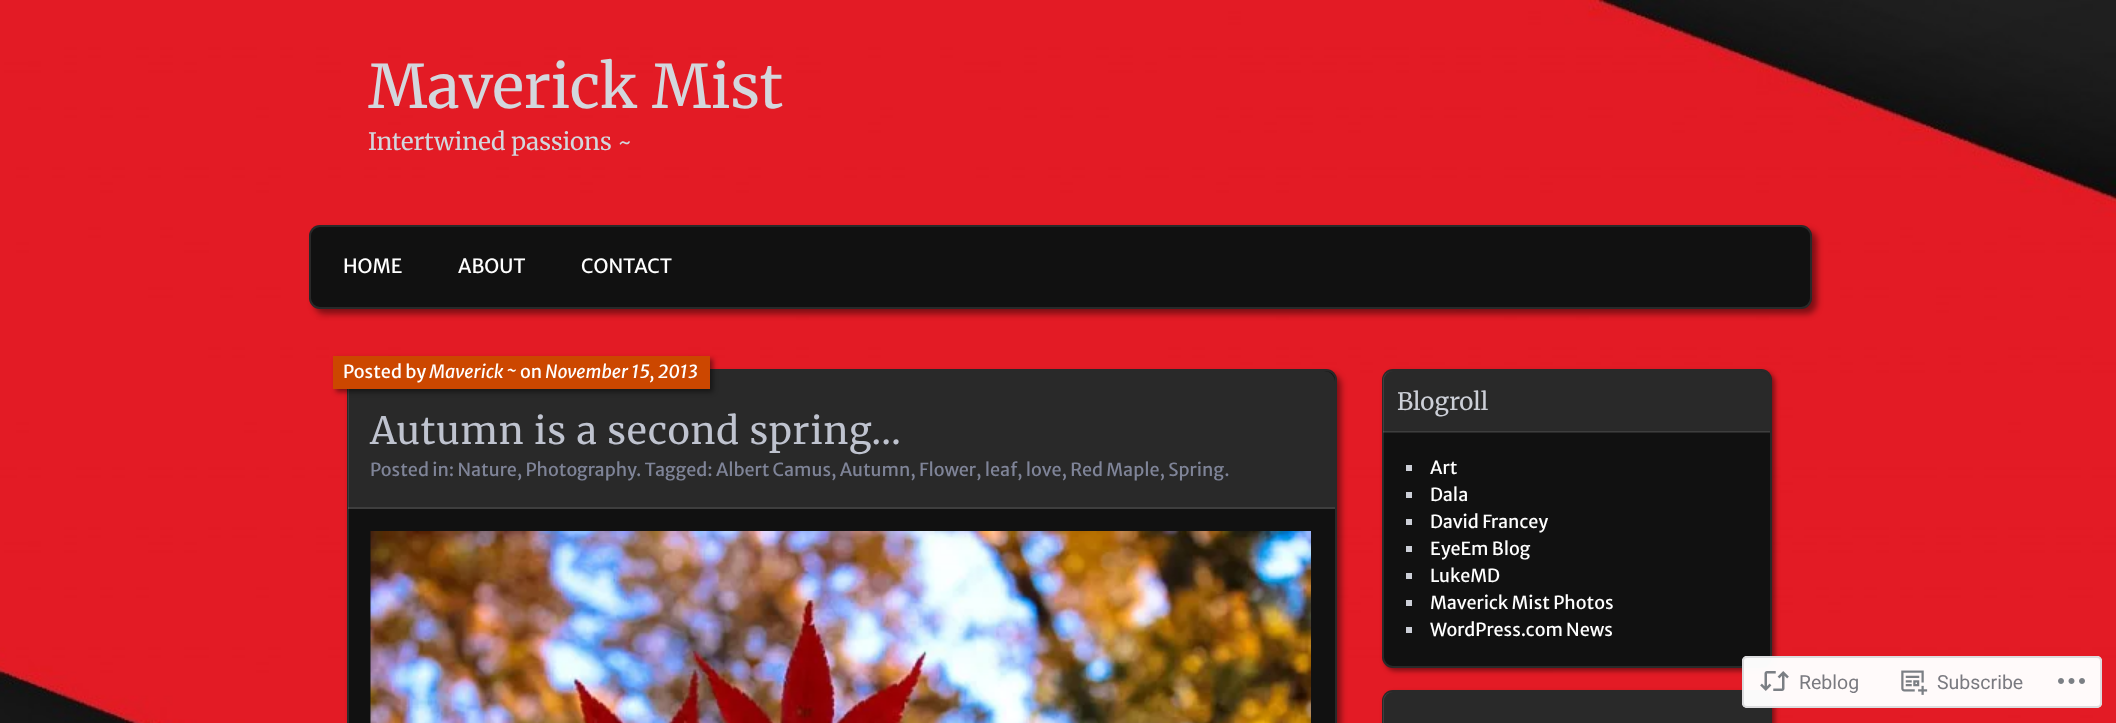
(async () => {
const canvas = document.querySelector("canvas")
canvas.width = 2116
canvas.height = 723
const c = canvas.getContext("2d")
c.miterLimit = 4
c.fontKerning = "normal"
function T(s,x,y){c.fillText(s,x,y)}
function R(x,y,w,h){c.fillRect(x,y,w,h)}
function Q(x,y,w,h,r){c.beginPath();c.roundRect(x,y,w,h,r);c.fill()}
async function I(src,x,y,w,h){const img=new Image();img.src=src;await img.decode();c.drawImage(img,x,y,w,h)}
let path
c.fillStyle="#fff"
R(0,0,2116,723)
await I("1.png",0,0,2116,723)
c.font="300 60px Merriweather"
c.fillStyle="#d3d7dd"
T("Maverick Mist",368,108)
c.font="300 24px Merriweather"
T("Intertwined passions ~",368,150)
c.fillStyle="#00000073"
c.filter="blur(3px)"
c.beginPath()
c.roundRect(314,230,1503,84,11)
c.fill()
c.filter="none"
c.fillStyle="#111"
Q(309,225,1503,84,11)
c.beginPath()
c.roundRect(310,226,1501,82,10)
c.strokeStyle="#ffffff1a"
c.lineWidth=2
c.stroke()
c.font="19.5px Merriweather Sans"
c.fillStyle="#fff"
T("HOME",343,273)
T("ABOUT",458,273)
T("CONTACT",581,273)
c.fillStyle="#00000073"
c.filter="blur(3px)"
c.beginPath()
c.roundRect(351,374,990,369,11)
c.fill()
c.filter="none"
c.fillStyle="#111"
Q(347,369,990,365,11)
c.beginPath()
c.roundRect(348,370,988,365,10)
c.stroke()
c.fillStyle="#ffffff1a"
c.beginPath()
c.roundRect(348,371,987,138,[11,11,0,0])
c.fill()
R(348,507,987,2)
c.fillStyle="#00000073"
c.filter="blur(2.5px)"
c.beginPath()
c.rect(336,359,377,33)
c.fill()
c.filter="none"
c.fillStyle="#cc4700"
R(333,356,377,33)
c.font="18px Merriweather Sans"
c.fillStyle="#fff"
T("Posted by",343,378)
c.font="italic 18px Merriweather Sans"
T("Maverick ~",429,378)
c.font="18px Merriweather Sans"
T("on",520,378)
c.font="italic 18px Merriweather Sans"
T("November 15, 2013",545,378)
c.letterSpacing="0.95px"
c.font="300 37.5px Merriweather"
c.fillStyle="#bfc3cf"
T("Autumn is a second spring…",370,444)
c.letterSpacing="0px"
c.font="18px Merriweather Sans"
c.fillStyle="#7f8498"
T("Posted in: Nature, Photography",370,476)
T(". Tagged: Albert Camus, Autumn, Flower, leaf",636,476)
T(", love, Red Maple, Spring.",1017,476)
await I("2.png",370,531,941,192)
c.fillStyle="#00000073"
c.filter="blur(2.5px)"
c.beginPath()
c.roundRect(1385,372,390,299,11)
c.fill()
c.filter="none"
c.fillStyle="#111"
Q(1382,369,390,299,11)
c.beginPath()
c.roundRect(1383,370,388,297,10)
c.stroke()
c.fillStyle="#ffffff1a"
c.beginPath()
c.roundRect(1383,371,387,61,[9,9,0,0])
c.fill()
R(1383,431,387,2)
c.font="300 24px Merriweather"
c.fillStyle="#cccfd7"
T("Blogroll",1397,410)
R(1406,465,6,6)
c.font="18px Merriweather Sans"
c.fillStyle="#fff"
T("Art",1430,474)
c.fillStyle="#cccfd7"
R(1406,492,6,6)
c.fillStyle="#fff"
T("Dala",1430,501)
c.fillStyle="#cccfd7"
R(1406,519,6,6)
c.fillStyle="#fff"
T("David Francey",1430,528)
c.fillStyle="#cccfd7"
R(1406,546,6,6)
c.fillStyle="#fff"
T("EyeEm Blog",1430,555)
c.fillStyle="#cccfd7"
R(1406,573,6,6)
c.fillStyle="#fff"
T("LukeMD",1430,582)
c.fillStyle="#cccfd7"
R(1406,600,6,6)
c.fillStyle="#fff"
T("Maverick Mist Photos",1430,609)
c.fillStyle="#cccfd7"
R(1406,627,6,6)
c.fillStyle="#fff"
T("WordPress.com News",1430,636)
c.fillStyle="#00000073"
c.filter="blur(2.5px)"
c.beginPath()
c.roundRect(1385,693,390,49,11)
c.fill()
c.filter="none"
c.fillStyle="#111"
Q(1382,690,390,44,11)
c.beginPath()
c.roundRect(1383,691,388,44,10)
c.stroke()
c.fillStyle="#ffffff1a"
path = new Path2D("M1392 692h369c5 0 9 4 9 9v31h-387v-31c0-5 4-9 9-9z")
c.fill(path)
c.fillStyle="#fffffffa"
Q(1742,656,360,52,5)
c.beginPath()
c.roundRect(1743,657,358,50,4)
c.strokeStyle="#dcdcdefa"
c.stroke()
await I("3.png",1760,671,29,20)
c.font="19.5px Roboto"
c.fillStyle="#7a7a80"
T("Reblog",1799,689)
await I("4.png",1901,670,27,25)
T("Subscribe",1937,689)
await I("5.png",2058,678,27,6)
})()
